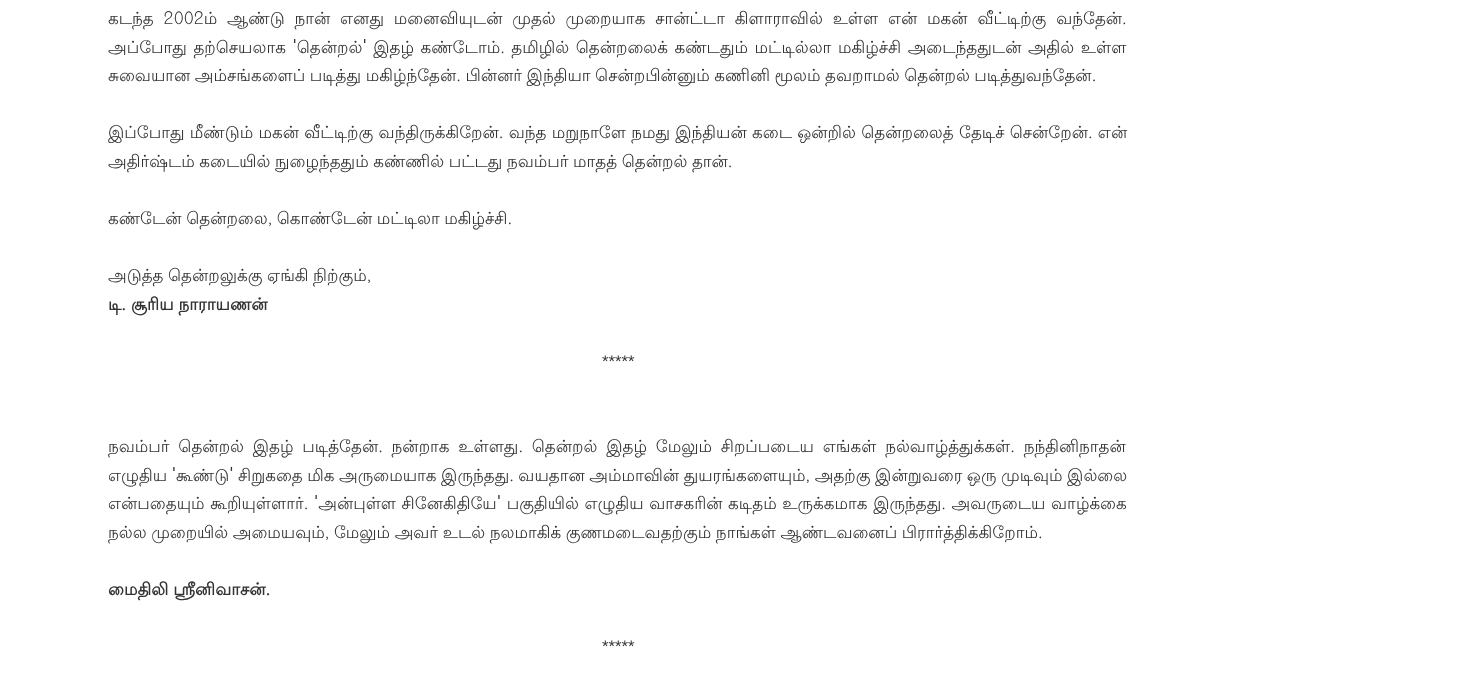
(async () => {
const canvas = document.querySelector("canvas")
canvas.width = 1467
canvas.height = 676
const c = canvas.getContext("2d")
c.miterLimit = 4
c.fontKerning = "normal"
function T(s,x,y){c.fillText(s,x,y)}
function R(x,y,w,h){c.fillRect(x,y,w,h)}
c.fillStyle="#fff"
R(0,0,1467,676)
c.wordSpacing="4.75px"
c.font="16.8px Lohit Tamil"
c.fillStyle="#333"
T("கடந்த 2002ம் ஆண்டு நான் எனது மனைவியுடன் முதல் முறையாக சான்ட்டா கிளாராவில் உள்ள என் மகன் வீட்டிற்கு வந்தேன்.",108,24)
c.wordSpacing="1.5px"
T("அப்போது தற்செயலாக 'தென்றல்' இதழ் கண்டோம். தமிழில் தென்றலைக் கண்டதும் மட்டில்லா மகிழ்ச்சி அடைந்ததுடன் அதில் உள்ள",108,53)
c.wordSpacing="-0.5px"
T("சுவையான அம்சங்களைப் படித்து மகிழ்ந்தேன். பின்னர் இந்தியா சென்றபின்னும் கணினி மூலம் தவறாமல் தென்றல் படித்துவந்தேன்.",108,81)
c.wordSpacing="0.25px"
T("இப்போது மீண்டும் மகன் வீட்டிற்கு வந்திருக்கிறேன். வந்த மறுநாளே நமது இந்தியன் கடை ஒன்றில் தென்றலைத் தேடிச் சென்றேன். என்",108,138)
c.wordSpacing="-0.5px"
T("அதிர்ஷ்டம் கடையில் நுழைந்ததும் கண்ணில் பட்டது நவம்பர் மாதத் தென்றல் தான்.",108,167)
T("கண்டேன் தென்றலை, கொண்டேன் மட்டிலா மகிழ்ச்சி.",108,224)
T("அடுத்த தென்றலுக்கு ஏங்கி நிற்கும்,",108,281)
c.wordSpacing="0px"
c.font="bold 16.8px Lohit Tamil"
T("டி. சூரிய நாராயணன்",108,310)
c.font="16.8px Liberation Sans"
T("*****",602,367)
c.wordSpacing="3.75px"
c.font="16.8px Lohit Tamil"
T("நவம்பர் தென்றல் இதழ் படித்தேன். நன்றாக உள்ளது. தென்றல் இதழ் மேலும் சிறப்படைய எங்கள் நல்வாழ்த்துக்கள். நந்தினிநாதன்",108,452)
c.wordSpacing="-0.5px"
T("எழுதிய 'கூண்டு' சிறுகதை மிக அருமையாக இருந்தது. வயதான அம்மாவின் துயரங்களையும், அதற்கு இன்றுவரை ஒரு முடிவும் இல்லை",108,481)
c.wordSpacing="0.6px"
T("என்பதையும் கூறியுள்ளார். 'அன்புள்ள சினேகிதியே' பகுதியில் எழுதிய வாசகரின் கடிதம் உருக்கமாக இருந்தது. அவருடைய வாழ்க்கை",108,509)
c.wordSpacing="-0.5px"
T("நல்ல முறையில் அமையவும், மேலும் அவர் உடல் நலமாகிக் குணமடைவதற்கும் நாங்கள் ஆண்டவனைப் பிரார்த்திக்கிறோம்.",108,538)
c.wordSpacing="0px"
c.font="bold 16.8px Lohit Tamil"
T("மைதிலி ஸ்ரீனிவாசன்.",108,595)
c.font="16.8px Liberation Sans"
T("*****",602,652)
})()
